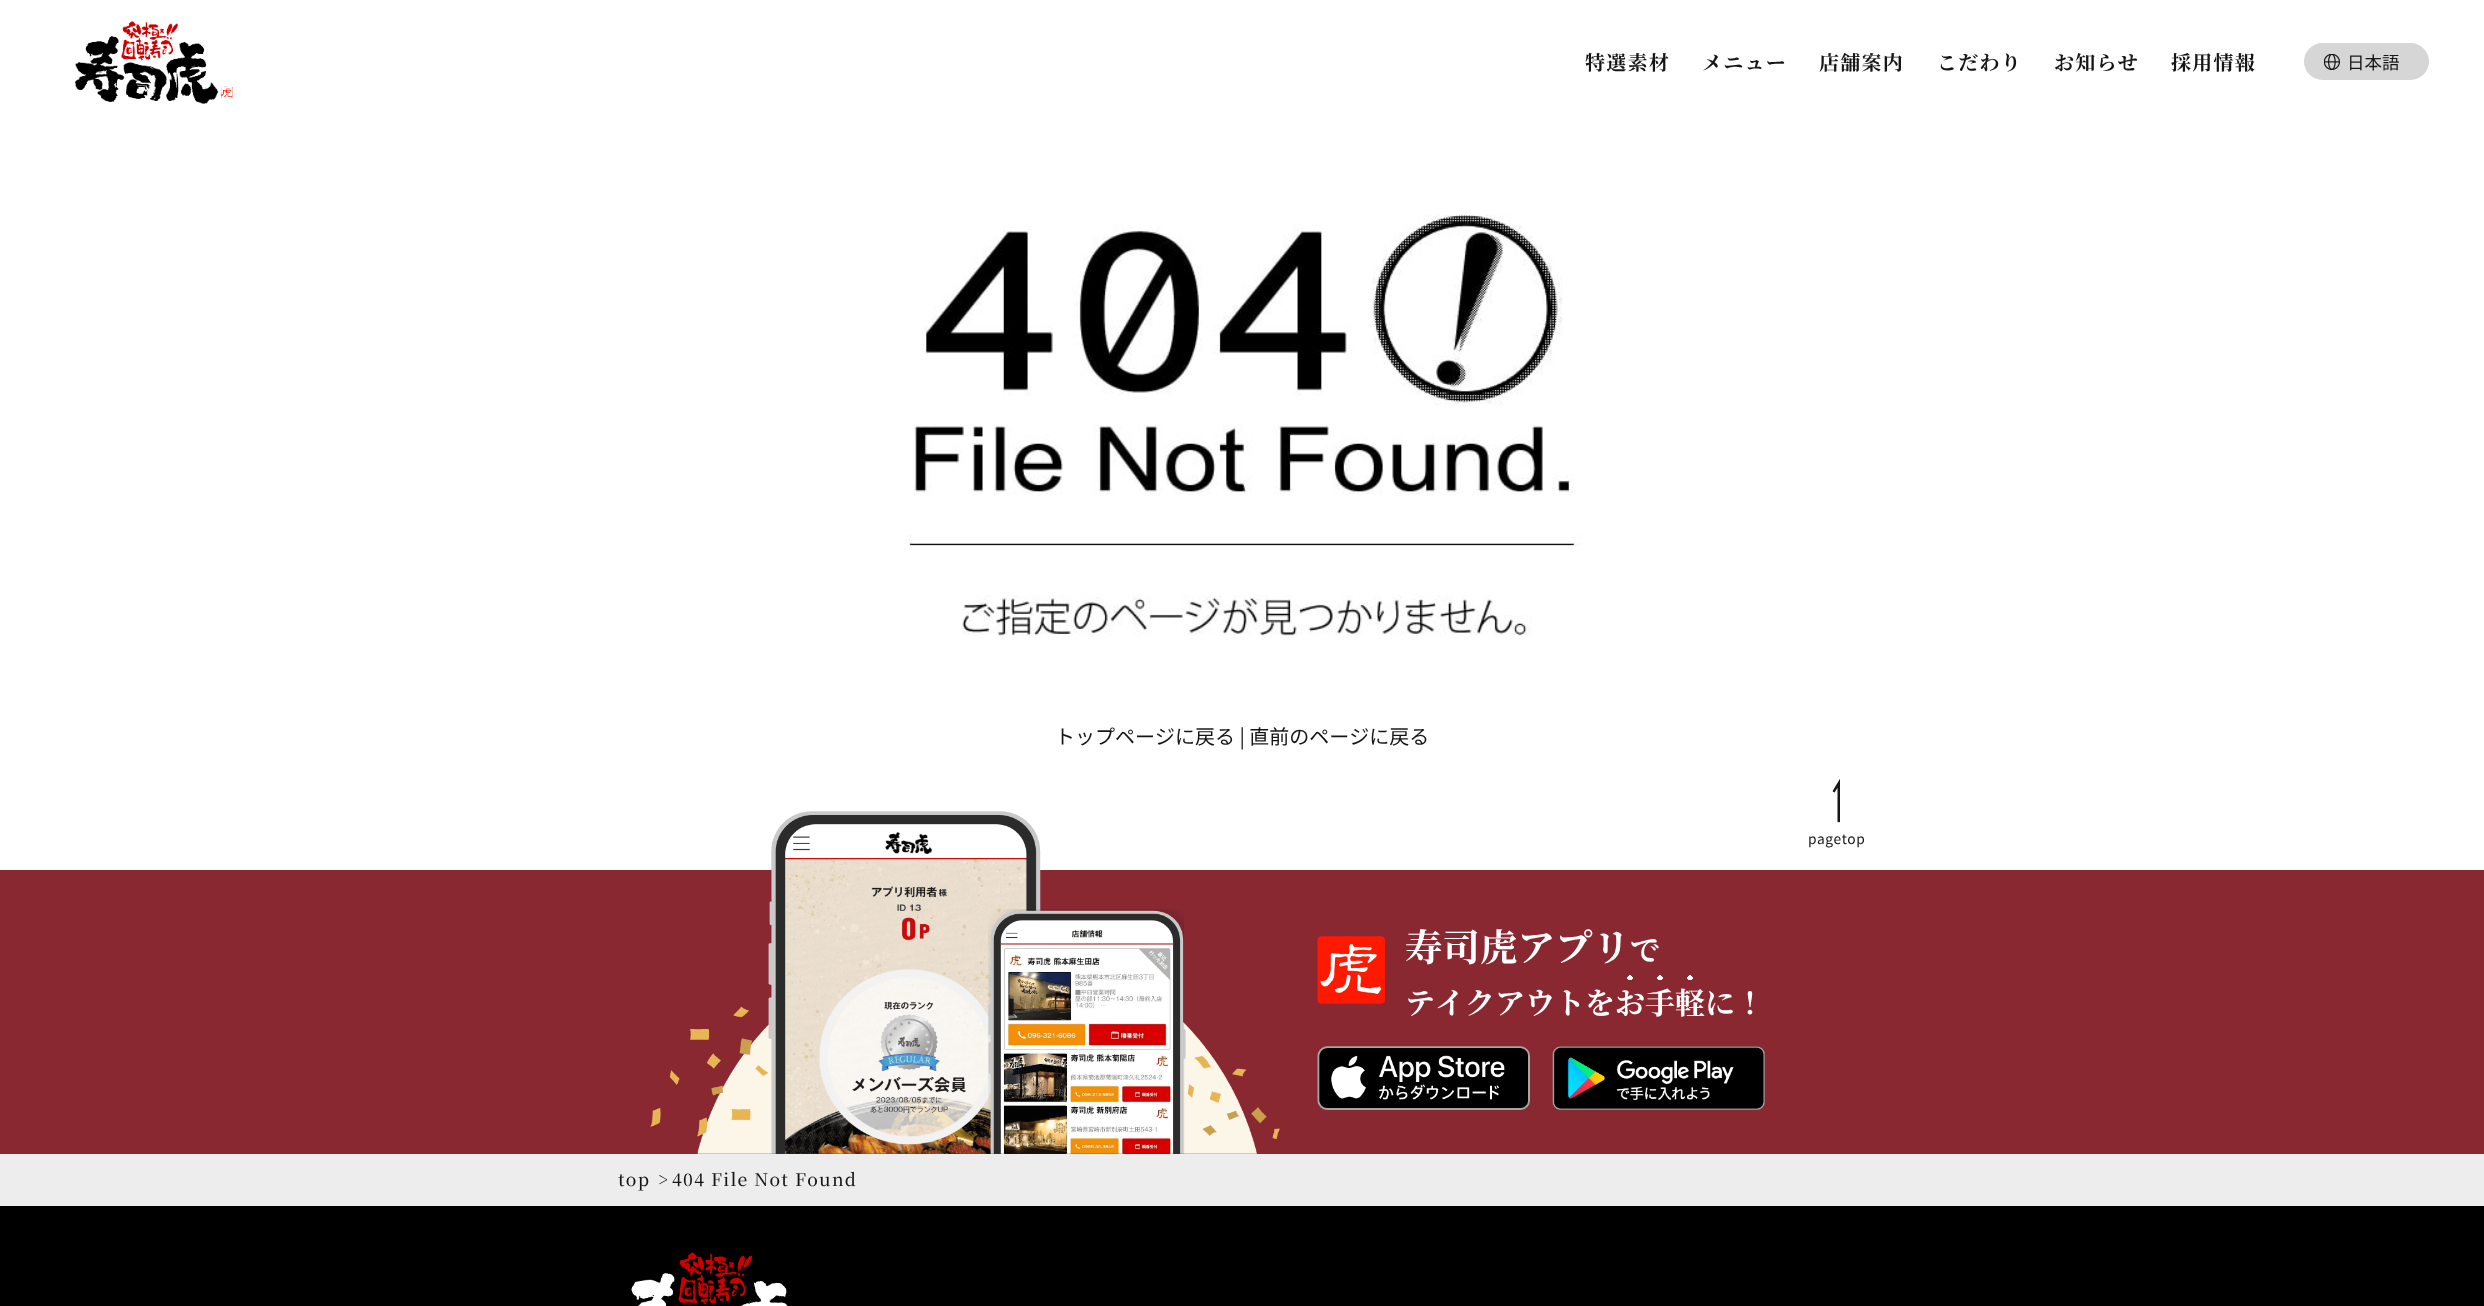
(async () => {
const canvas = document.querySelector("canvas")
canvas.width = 2484
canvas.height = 1306
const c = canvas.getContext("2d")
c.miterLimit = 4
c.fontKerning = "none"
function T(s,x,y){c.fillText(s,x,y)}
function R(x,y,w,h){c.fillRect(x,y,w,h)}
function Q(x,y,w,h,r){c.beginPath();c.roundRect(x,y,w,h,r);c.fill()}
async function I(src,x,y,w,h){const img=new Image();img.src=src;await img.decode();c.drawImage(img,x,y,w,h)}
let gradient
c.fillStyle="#fff"
R(0,0,2484,1306)
await I("1.png",75,21,158,83)
c.letterSpacing="1.25px"
c.font="bold 20px Noto Serif JP"
c.fillStyle="#151515"
T("特選素材",1585,70)
T("メニュー",1702,70)
T("店舗案内",1819,70)
T("こだわり",1937,70)
T("お知らせ",2054,70)
T("採用情報",2171,70)
c.fillStyle="#d6d6d6"
Q(2304,43,125,37,18.5)
await I("2.png",2324,54,16,16)
c.letterSpacing="0px"
c.font="100 17.5px Noto Sans JP"
c.fillStyle="#151515"
T("日本語",2347,69)
await I("3.png",905,214,677,422)
c.font="100 20px Noto Sans JP"
T("トップページに戻る | 直前のページに戻る",1055,744)
await I("4.png",1832,779,8,44)
c.letterSpacing="0.5px"
c.font="100 13.75px Noto Sans JP"
T("pagetop",1808,844)
c.fillStyle="#8a2832"
R(0,870,2484,284)
await I("5.png",650,811,630,343)
await I("6.png",1317,936,68,68)
c.letterSpacing="0px"
c.font="bold 37.5px Noto Serif JP"
c.fillStyle="#fff"
T("寿司虎アプリ",1405,961)
c.font="bold 30px Noto Serif JP"
T("で",1630,961)
gradient = c.createRadialGradient(1630,978,0,1630,978,15)
gradient.addColorStop(.17,"#fff")
gradient.addColorStop(.17,"#8a2832")
c.fillStyle = gradient
R(1627,975,6,5)
gradient = c.createRadialGradient(1660,978,0,1660,978,15)
gradient.addColorStop(.17,"#fff")
gradient.addColorStop(.17,"#8a2832")
c.fillStyle = gradient
R(1657,975,6,5)
gradient = c.createRadialGradient(1690,978,0,1690,978,15)
gradient.addColorStop(.17,"#fff")
gradient.addColorStop(.17,"#8a2832")
c.fillStyle = gradient
R(1687,975,6,5)
c.fillStyle="#fff"
T("テイクアウトをお手軽に！",1405,1014)
await I("7.png",1317,1046,213,64)
await I("8.png",1552,1046,213,64)
c.fillStyle="#ededed"
R(0,1154,2484,52)
c.letterSpacing="1.25px"
c.font="500 17.5px Noto Serif JP"
c.fillStyle="#151515"
T("top",618,1186)
T(">",658,1186)
T("404 File Not Found",672,1186)
c.fillStyle="#000"
R(0,1206,2484,100)
await I("9.png",631,1252,157,54)
})()
